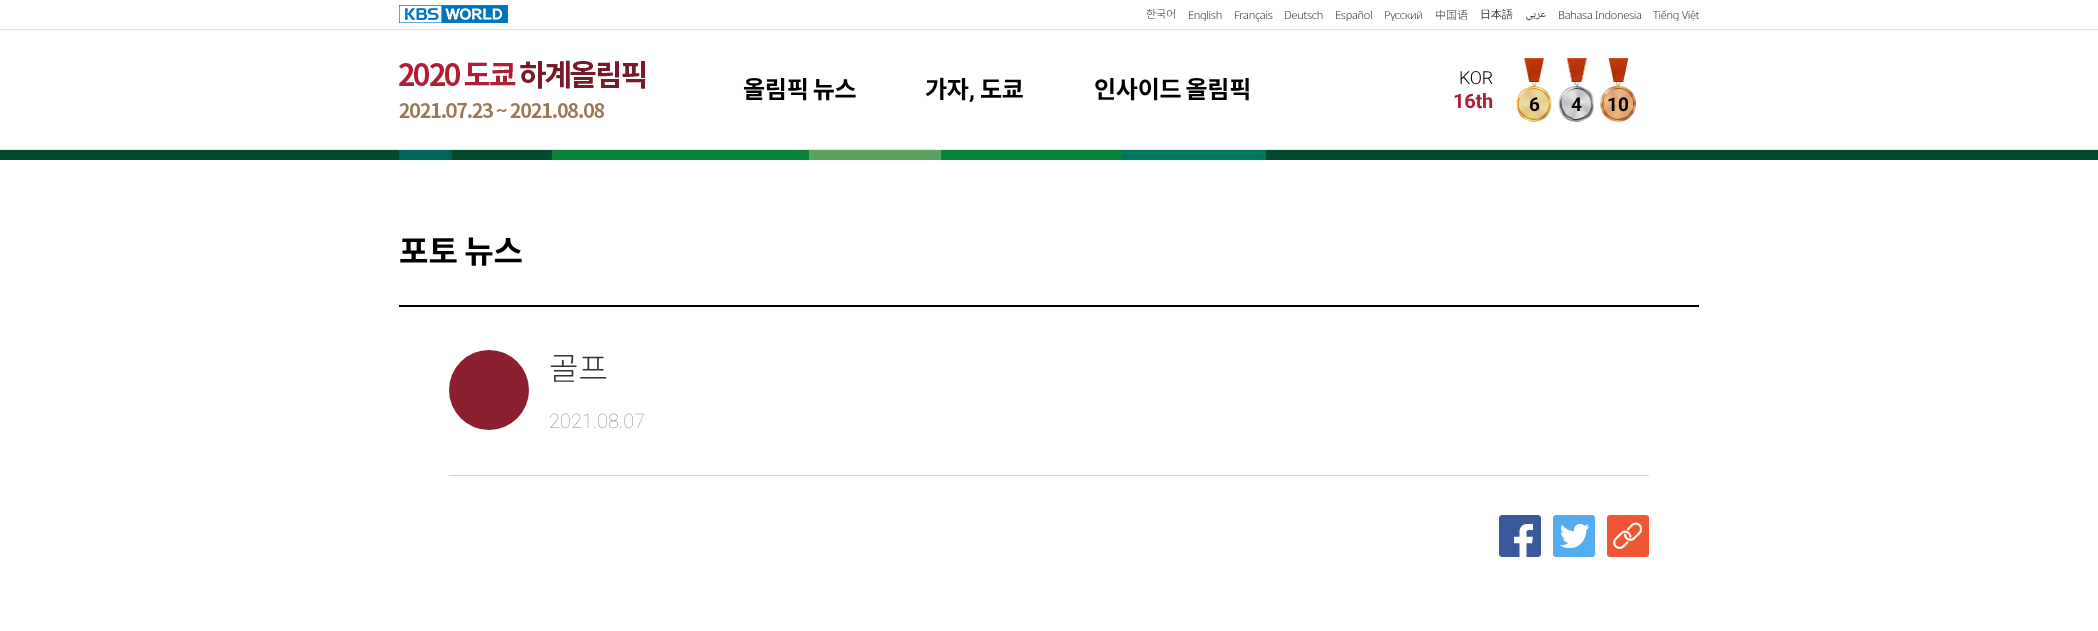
(async () => {
const canvas = document.querySelector("canvas")
canvas.width = 2098
canvas.height = 631
const c = canvas.getContext("2d")
c.miterLimit = 4
c.fontKerning = "normal"
function T(s,x,y){c.fillText(s,x,y)}
function R(x,y,w,h){c.fillRect(x,y,w,h)}
async function I(src,x,y,w,h){const img=new Image();img.src=src;await img.decode();c.drawImage(img,x,y,w,h)}
c.fillStyle="#fff"
R(0,0,2098,631)
c.fillStyle="#e0e0e0"
R(0,29,2098,1)
await I("1.png",399,5,109,18)
c.font="300 11px Noto Sans KR"
c.fillStyle="#333"
T("한국어",1146,18)
c.save()
c.beginPath()
c.rect(1146,8,553,13)
c.clip()
c.letterSpacing="-0.3px"
c.font="300 11px Noto Sans"
T("English",1188,19)
c.restore()
c.letterSpacing="-0.3px"
c.font="300 11px Noto Sans"
T("Français",1234,19)
T("Deutsch",1284,19)
T("Español",1335,19)
c.save()
c.beginPath()
c.rect(1146,8,553,13)
c.clip()
T("Русский",1384,19)
c.restore()
c.letterSpacing="0px"
c.font="300 11px Noto Sans SC"
T("中国语",1435,19)
c.font="500 11px WenQuanYi Zen Hei"
T("日本語",1480,18)
c.save()
c.beginPath()
c.rect(1146,8,553,13)
c.clip()
c.direction="rtl"
c.font="11px Noto Naskh Arabic"
T("عربي",1546,17)
c.restore()
c.letterSpacing="-0.3px"
c.font="300 11px Noto Sans"
T("Bahasa Indonesia",1558,19)
c.save()
c.beginPath()
c.rect(1146,8,553,13)
c.clip()
T("Tiếng Việt",1653,19)
c.restore()
await I("2.png",399,60,246,58)
c.letterSpacing="-0.25px"
c.wordSpacing="-1px"
c.font="bold 24px Noto Sans KR"
c.fillStyle="#000"
T("올림픽 뉴스",743,98)
c.wordSpacing="0px"
T("가자",925,98)
T("도쿄",980,98)
c.font="bold 24px Roboto"
T(",",969,98)
c.wordSpacing="-1px"
c.font="bold 24px Noto Sans KR"
T("인사이드 올림픽",1094,98)
c.wordSpacing="0px"
c.font="300 18px Roboto"
T("KOR",1459,84)
c.font="bold 20px Roboto"
c.fillStyle="#b11d33"
T("16th",1453,108)
await I("3.png",1516,58,36,64)
c.letterSpacing="0px"
c.font="bold 19px Roboto"
c.fillStyle="#000"
T("6",1529,111)
await I("4.png",1558,58,36,64)
T("4",1571,111)
await I("5.png",1600,58,36,64)
T("10",1607,111)
c.fillStyle="#e7e7e7"
R(0,149,2098,1)
c.fillStyle="#004b2e"
R(0,150,2098,10)
await I("6.png",399,150,867,10)
c.wordSpacing="-1px"
c.font="bold 32px Noto Sans KR"
c.fillStyle="#000"
T("포토 뉴스",399,263)
R(399,305,1300,2)
c.fillStyle="#d7d7d7"
R(449,475,1200,1)
c.fillStyle="#8b2030"
c.beginPath()
c.arc(489,390,40,0,7)
c.fill()
c.wordSpacing="0px"
c.font="300 32px Noto Sans KR"
c.fillStyle="#333"
T("골프",549,380)
c.font="100 20px Roboto"
c.fillStyle="#909090"
T("2021.08.07",549,428)
await I("7.png",1499,515,42,42)
await I("8.png",1553,515,42,42)
await I("9.png",1607,515,42,42)
})()
